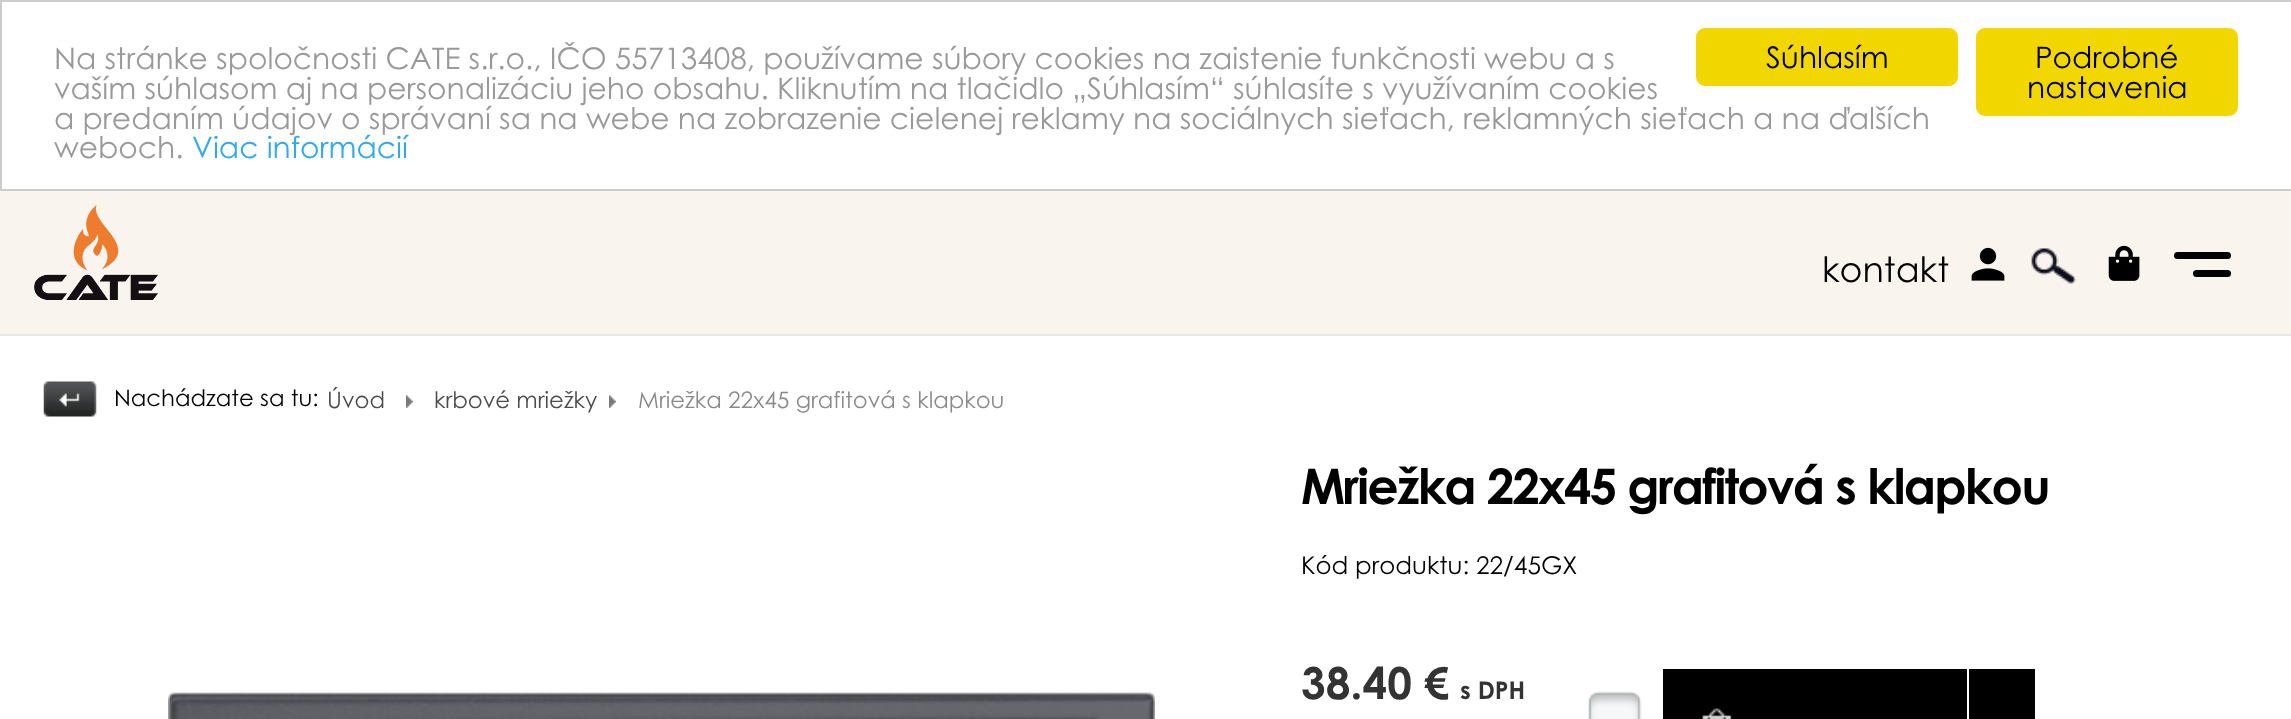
(async () => {
const canvas = document.querySelector("canvas")
canvas.width = 2291
canvas.height = 719
const c = canvas.getContext("2d")
c.miterLimit = 4
c.fontKerning = "normal"
function T(s,x,y){c.fillText(s,x,y)}
function R(x,y,w,h){c.fillRect(x,y,w,h)}
function Q(x,y,w,h,r){c.beginPath();c.roundRect(x,y,w,h,r);c.fill()}
async function I(src,x,y,w,h){const img=new Image();img.src=src;await img.decode();c.drawImage(img,x,y,w,h)}
c.fillStyle="#f9f4ee"
R(0,0,2291,719)
c.fillStyle="#fff"
c.beginPath()
c.rect(1,1,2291,189)
c.fill()
c.strokeStyle="#ccc"
c.lineWidth=2
c.stroke()
c.font="29.75px Century Gothic"
c.fillStyle="#999"
T("Na stránke spoločnosti CATE s.r.o., IČO 55713408, používame súbory cookies na zaistenie funkčnosti webu a s",54,69)
T("vaším súhlasom aj na personalizáciu jeho obsahu. Kliknutím na tlačidlo „Súhlasím“ súhlasíte s využívaním cookies",54,99)
T("a predaním údajov o správaní sa na webe na zobrazenie cielenej reklamy na sociálnych sieťach, reklamných sieťach a na ďalších",54,129)
T("weboch.",54,158)
c.fillStyle="#31a8f0"
T("Viac informácií",192,158)
c.fillStyle="#f1d600"
Q(1696,28,262,58,9)
c.fillStyle="#000"
T("Súhlasím",1766,68)
c.fillStyle="#f1d600"
Q(1976,28,262,88,9)
c.fillStyle="#000"
T("Podrobné",2035,68)
T("nastavenia",2027,98)
c.fillStyle="#e8e8e8"
R(0,334,2291,2)
await I("1.png",34,205,124,95)
c.font="35px Century Gothic"
c.fillStyle="#000"
T("kontakt",1822,282)
await I("2.png",1971,247,34,34)
await I("3.png",2031,248,45,36)
await I("4.png",2108,245,32,36)
Q(2174,252,57,7,3.5)
Q(2193,270,38,7,3.5)
c.fillStyle="#fff"
R(0,336,2291,383)
await I("5.png",43,381,54,36)
c.font="22.75px Century Gothic"
c.fillStyle="#000"
T("Nachádzate sa tu:",114,406)
c.fillStyle="#4b4b4b"
T("Úvod",327,408)
await I("6.png",406,395,7,13)
T("krbové mriežky",434,408)
await I("7.png",609,395,7,13)
c.fillStyle="#8a8a8a"
T("Mriežka 22x45 grafitová s klapkou",638,408)
c.letterSpacing="-1.75px"
c.font="bold 49px Century Gothic"
c.fillStyle="#000"
T("Mriežka 22x45 grafitová s klapkou",1301,504)
c.letterSpacing="0px"
c.font="24.5px Century Gothic"
T("Kód produktu: 22/45GX",1301,574)
c.font="bold 44px Century Gothic"
c.fillStyle="#333"
T("38.40 €",1301,699)
c.font="bold 24.5px Century Gothic"
T("s DPH",1460,699)
await I("8.png",1588,691,54,28)
c.fillStyle="#000"
R(1663,669,304,50)
await I("9.png",1702,708,30,11)
R(1969,669,66,50)
await I("10.png",168,691,987,28)
})()
